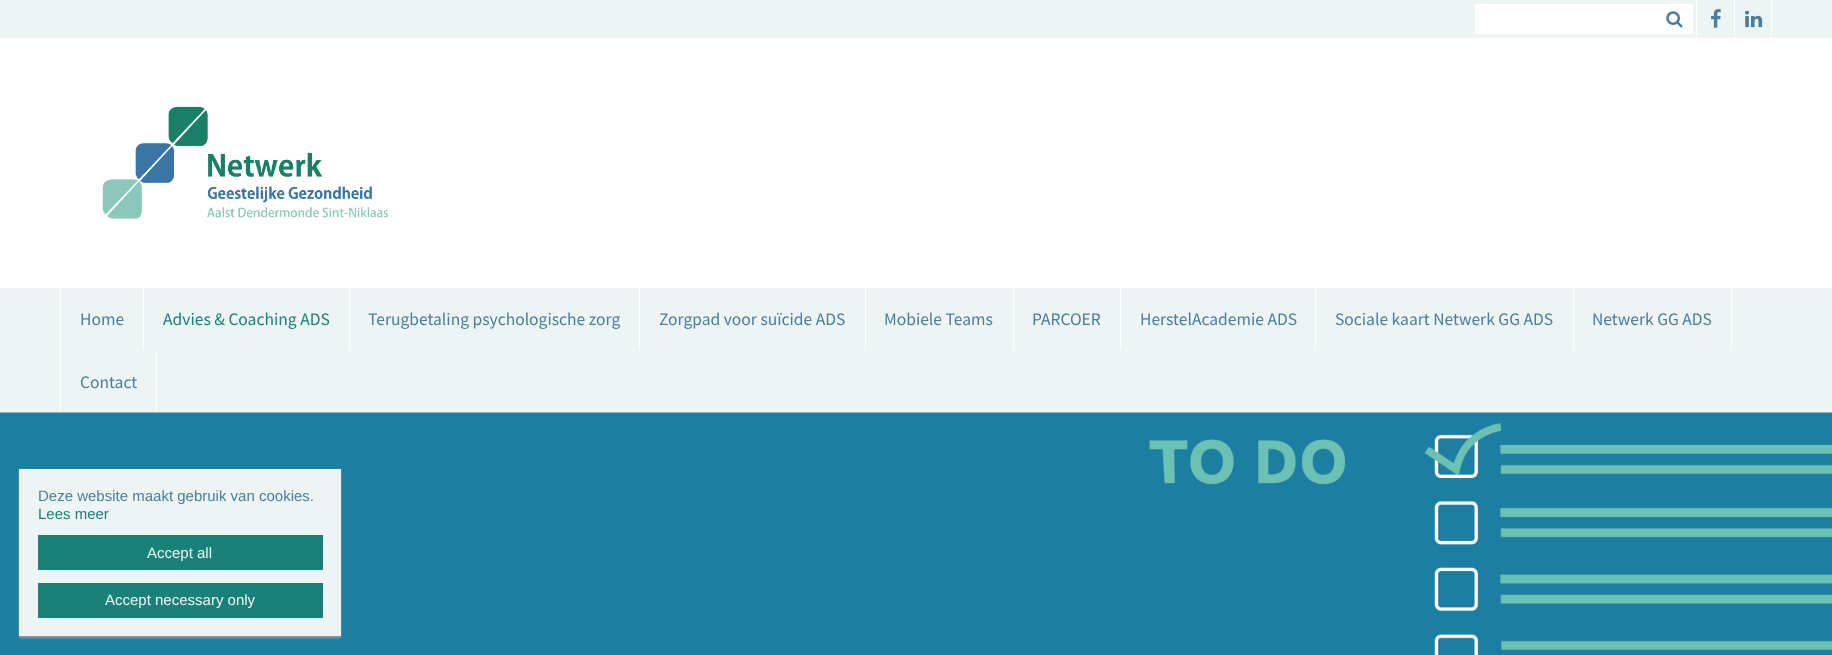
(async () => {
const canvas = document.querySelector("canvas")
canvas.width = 1832
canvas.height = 655
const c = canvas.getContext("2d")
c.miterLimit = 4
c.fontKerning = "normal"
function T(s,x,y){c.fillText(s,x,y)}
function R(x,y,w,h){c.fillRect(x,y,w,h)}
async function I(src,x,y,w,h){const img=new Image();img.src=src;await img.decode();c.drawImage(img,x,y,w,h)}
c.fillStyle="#fff"
R(0,0,1832,655)
c.fillStyle="#ecf5f3"
R(0,0,1832,38)
c.fillStyle="#fff"
R(1475,4,218,30)
await I("1.png",1666,11,17,17)
R(1771,0,1,38)
R(1696,0,1,38)
await I("2.png",1711,9,10,19)
R(1734,0,1,38)
await I("3.png",1745,10,18,18)
await I("4.png",102,106,287,113)
c.fillStyle="#ecf5f3"
R(0,288,1832,125)
c.fillStyle="#fff"
R(60,288,1,125)
R(143,288,1,62)
c.font="17.5px Source Sans Pro"
c.fillStyle="#4a7d9e"
T("Home",80,325)
c.fillStyle="#fff"
R(349,288,1,62)
c.fillStyle="#1a8178"
T("Advies & Coaching ADS",163,325)
c.fillStyle="#fff"
R(639,288,1,62)
c.fillStyle="#4a7d9e"
T("Terugbetaling psychologische zorg",368,325)
c.fillStyle="#fff"
R(865,288,1,62)
c.fillStyle="#4a7d9e"
T("Zorgpad voor suïcide ADS",659,325)
c.fillStyle="#fff"
R(1013,288,1,62)
c.fillStyle="#4a7d9e"
T("Mobiele Teams",884,325)
c.fillStyle="#fff"
R(1120,288,1,62)
c.fillStyle="#4a7d9e"
T("PARCOER",1032,325)
c.fillStyle="#fff"
R(1315,288,1,62)
c.fillStyle="#4a7d9e"
T("HerstelAcademie ADS",1140,325)
c.fillStyle="#fff"
R(1573,288,1,62)
c.fillStyle="#4a7d9e"
T("Sociale kaart Netwerk GG ADS",1335,325)
c.fillStyle="#fff"
R(1731,288,1,62)
c.fillStyle="#4a7d9e"
T("Netwerk GG ADS",1592,325)
c.fillStyle="#fff"
R(156,350,1,63)
c.fillStyle="#4a7d9e"
T("Contact",80,388)
await I("5.png",0,412,1832,243)
c.fillStyle="#999"
c.filter="blur(1px)"
c.beginPath()
c.rect(19,470,322,168)
c.fill()
c.filter="none"
c.fillStyle="#ecf5f3"
R(19,469,322,167)
c.font="15px Liberation Sans"
c.fillStyle="#4a7d9e"
T("Deze website maakt gebruik van cookies.",38,501)
c.fillStyle="#1a8178"
T("Lees meer",38,519)
R(38,535,285,35)
c.fillStyle="#ecf5f3"
T("Accept all",147,558)
c.fillStyle="#1a8178"
R(38,583,285,35)
c.fillStyle="#ecf5f3"
T("Accept necessary only",105,605)
})()
